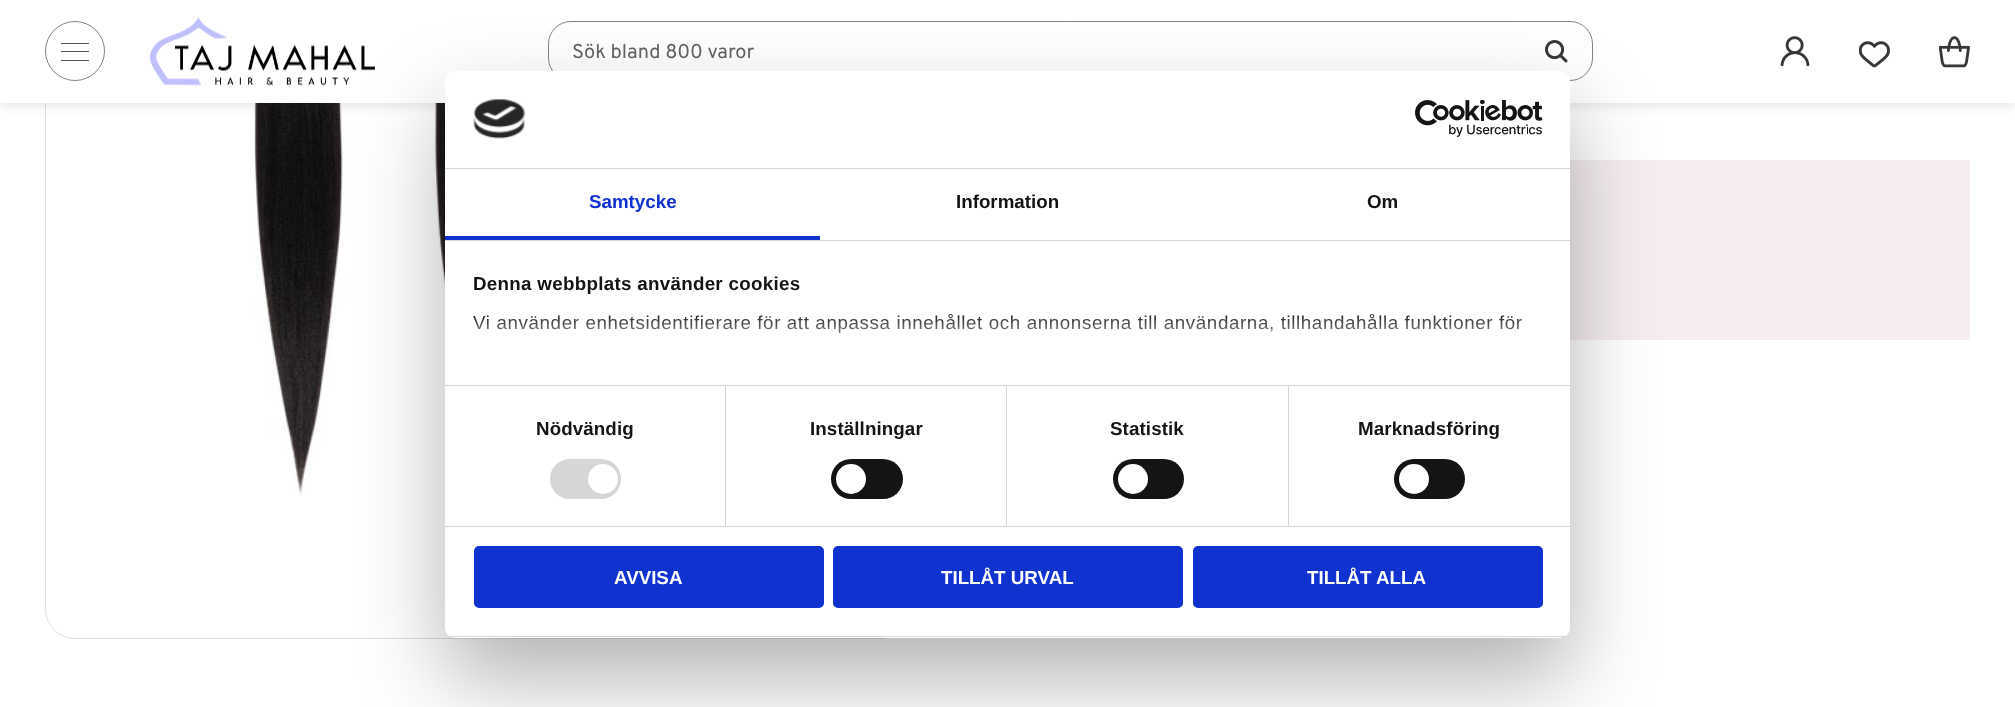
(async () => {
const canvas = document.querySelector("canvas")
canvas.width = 2015
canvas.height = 707
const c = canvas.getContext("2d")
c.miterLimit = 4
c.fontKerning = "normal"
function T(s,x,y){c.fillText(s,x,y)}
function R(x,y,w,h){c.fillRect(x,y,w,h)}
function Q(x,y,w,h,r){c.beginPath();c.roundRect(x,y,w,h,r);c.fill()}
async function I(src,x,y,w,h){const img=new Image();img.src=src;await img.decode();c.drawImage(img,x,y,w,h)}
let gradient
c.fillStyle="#fff"
R(0,0,2015,707)
c.beginPath()
c.roundRect(45.5,-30.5,865,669,29.5)
c.strokeStyle="#e0dede"
c.stroke()
await I("1.png",254,103,191,393)
c.fillStyle="#f6eeee"
R(1570,160,400,180)
c.fillStyle="#3b37371a"
c.filter="blur(4px)"
c.beginPath()
c.rect(0,-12,2015,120)
c.fill()
c.filter="none"
c.fillStyle="#fff"
R(0,0,2015,103)
c.beginPath()
c.arc(75,51,29.5,0,7)
c.strokeStyle="#8a8181"
c.stroke()
c.fillStyle="#555050"
R(61,43,28,1)
R(61,51,28,1)
R(61,60,28,1)
await I("2.png",150,17,225,69)
c.beginPath()
c.roundRect(548.5,21.5,1044,59,22.5)
c.stroke()
c.font="20px Overpass"
c.fillStyle="#646464"
T("Sök bland 800 varor",572,58)
await I("3.png",1545,40,23,23)
await I("4.png",1780,36,30,30)
await I("5.png",1859,41,31,27)
await I("6.png",1939,36,31,32)
c.fillStyle="#0000004d"
c.filter="blur(42.5px)"
c.beginPath()
c.roundRect(445,111,1125,567,10)
c.fill()
c.filter="none"
c.fillStyle="#fff"
Q(445,71,1125,567,10)
c.fillStyle="#d6d6d6"
R(445,168,1125,1)
await I("7.png",473,99,53,40)
await I("8.png",1415,100,128,37)
R(445,240,1125,1)
c.fillStyle="#1032cf"
R(445,236,375,4)
c.font="bold 18.75px Liberation Sans"
T("Samtycke",589,208)
c.fillStyle="#141414"
T("Information",956,208)
T("Om",1367,208)
c.fillStyle="#d6d6d6"
R(445,385,1125,1)
c.letterSpacing="0.3px"
c.fillStyle="#141414"
T("Denna webbplats använder cookies",473,290)
c.letterSpacing="0.62px"
c.font="18.75px Liberation Sans"
T("Vi använder enhetsidentifierare för att anpassa innehållet och annonserna till användarna, tillhandahålla funktioner för",473,329)
gradient = c.createLinearGradient(995,385,995,312)
gradient.addColorStop(0,"#fff")
gradient.addColorStop(.5,"#ffffffcc")
gradient.addColorStop(1,"#ffffff00")
c.fillStyle = gradient
R(473,314,1050,19)
c.fillStyle="#d6d6d6"
R(445,526,1125,1)
R(725,386,1,140)
c.letterSpacing="0.1px"
c.font="bold 18.75px Liberation Sans"
c.fillStyle="#141414"
T("Nödvändig",536,435)
c.fillStyle="#d6d6d6"
Q(550,459,71,40,20)
c.fillStyle="#fff"
c.beginPath()
c.arc(603,479,15,0,7)
c.fill()
c.fillStyle="#d6d6d6"
R(1006,386,1,140)
c.fillStyle="#141414"
T("Inställningar",810,435)
Q(831,459,72,40,20)
c.fillStyle="#fff"
c.beginPath()
c.arc(851,479,15,0,7)
c.fill()
c.fillStyle="#d6d6d6"
R(1288,386,1,140)
c.fillStyle="#141414"
T("Statistik",1110,435)
Q(1113,459,71,40,20)
c.fillStyle="#fff"
c.beginPath()
c.arc(1133,479,15,0,7)
c.fill()
c.fillStyle="#141414"
T("Marknadsföring",1358,435)
Q(1394,459,71,40,20)
c.fillStyle="#fff"
c.beginPath()
c.arc(1414,479,15,0,7)
c.fill()
c.save()
c.beginPath()
c.roundRect(445,71,1125,567,10)
c.clip()
c.fillStyle="#d6d6d6"
R(445,636,1125,1)
c.restore()
c.fillStyle="#1032cf"
c.beginPath()
c.roundRect(475.5,547.5,347,59,3.5)
c.fill()
c.strokeStyle="#1032cf"
c.lineWidth=3
c.stroke()
c.letterSpacing="0px"
c.fillStyle="#fff"
T("AVVISA",614,584)
c.fillStyle="#1032cf"
c.beginPath()
c.roundRect(834.5,547.5,347,59,3.5)
c.fill()
c.stroke()
c.fillStyle="#fff"
T("TILLÅT URVAL",941,584)
c.fillStyle="#1032cf"
c.beginPath()
c.roundRect(1194.5,547.5,347,59,3.5)
c.fill()
c.stroke()
c.fillStyle="#fff"
T("TILLÅT ALLA",1307,584)
})()
